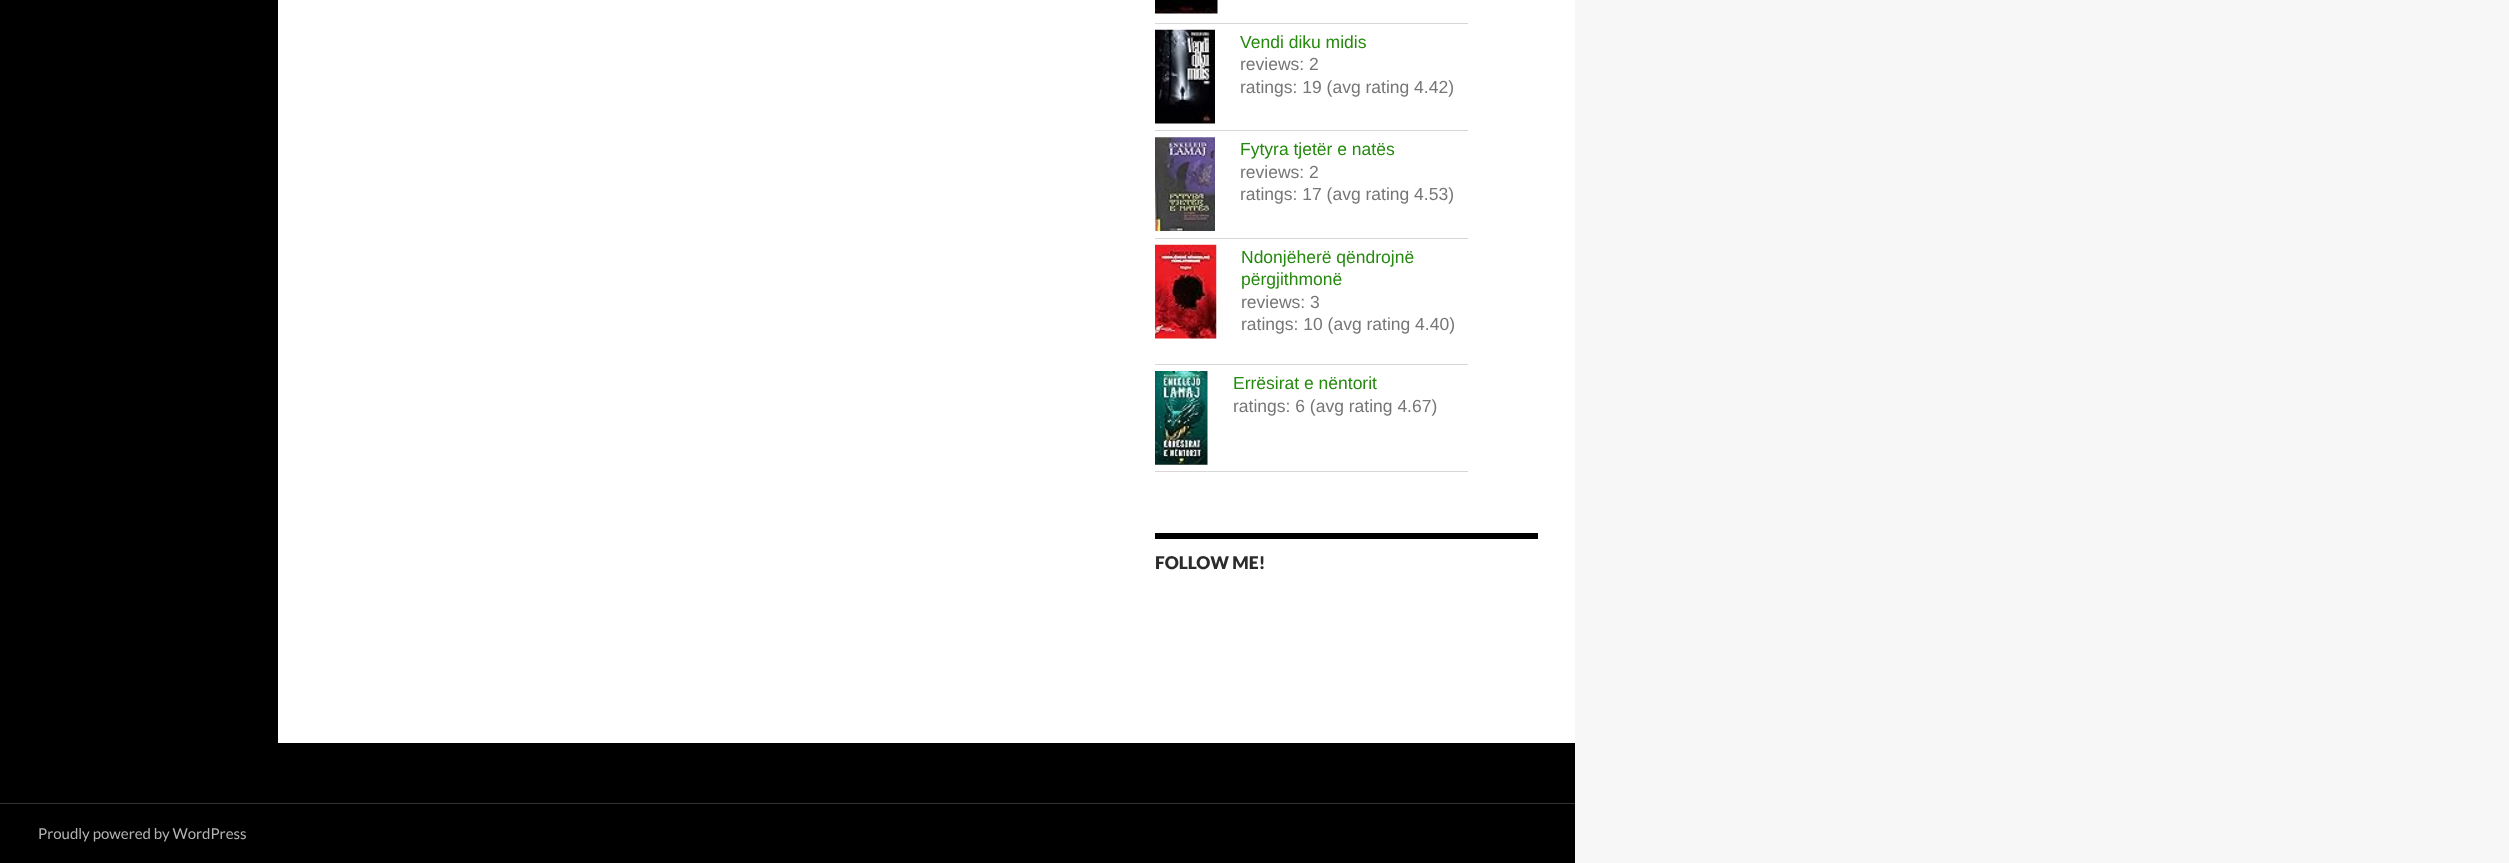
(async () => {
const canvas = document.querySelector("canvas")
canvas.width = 2509
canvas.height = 863
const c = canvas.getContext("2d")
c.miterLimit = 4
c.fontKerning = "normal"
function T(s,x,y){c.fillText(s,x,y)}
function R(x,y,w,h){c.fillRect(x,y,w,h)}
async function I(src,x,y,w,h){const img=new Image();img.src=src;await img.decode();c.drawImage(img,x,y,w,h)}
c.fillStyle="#f7f7f7"
R(0,0,2509,863)
c.fillStyle="#fff"
R(278,0,1297,743)
c.fillStyle="#000"
R(0,0,278,743)
c.fillStyle="#d7d7d7"
R(1155,23,313,1)
await I("1.png",1155,0,63,14)
R(1155,130,313,1)
await I("2.png",1155,29,60,95)
c.font="17.5px Liberation Sans"
c.fillStyle="#24890d"
T("Vendi diku midis",1240,48)
c.fillStyle="#767676"
T("reviews: 2",1240,70)
T("ratings: 19 (avg rating 4.42)",1240,93)
c.fillStyle="#d7d7d7"
R(1155,238,313,1)
await I("3.png",1155,137,60,94)
c.fillStyle="#24890d"
T("Fytyra tjetër e natës",1240,155)
c.fillStyle="#767676"
T("reviews: 2",1240,178)
T("ratings: 17 (avg rating 4.53)",1240,200)
c.fillStyle="#d7d7d7"
R(1155,364,313,1)
await I("4.png",1155,244,62,95)
c.fillStyle="#24890d"
T("Ndonjëherë qëndrojnë",1241,263)
T("përgjithmonë",1241,285)
c.fillStyle="#767676"
T("reviews: 3",1241,308)
T("ratings: 10 (avg rating 4.40)",1241,330)
c.fillStyle="#d7d7d7"
R(1155,471,313,1)
await I("5.png",1155,371,53,94)
c.fillStyle="#24890d"
T("Errësirat e nëntorit",1233,389)
c.fillStyle="#767676"
T("ratings: 6 (avg rating 4.67)",1233,412)
c.fillStyle="#000"
R(1155,533,383,6)
c.font="900 17.5px Lato"
c.fillStyle="#2b2b2b"
T("FOLLOW ME!",1155,569)
c.fillStyle="#000"
R(0,743,1575,120)
c.fillStyle="#333"
R(0,803,1575,1)
c.font="15px Lato"
c.fillStyle="#b3b3b3"
T("Proudly powered by WordPress",38,839)
})()
